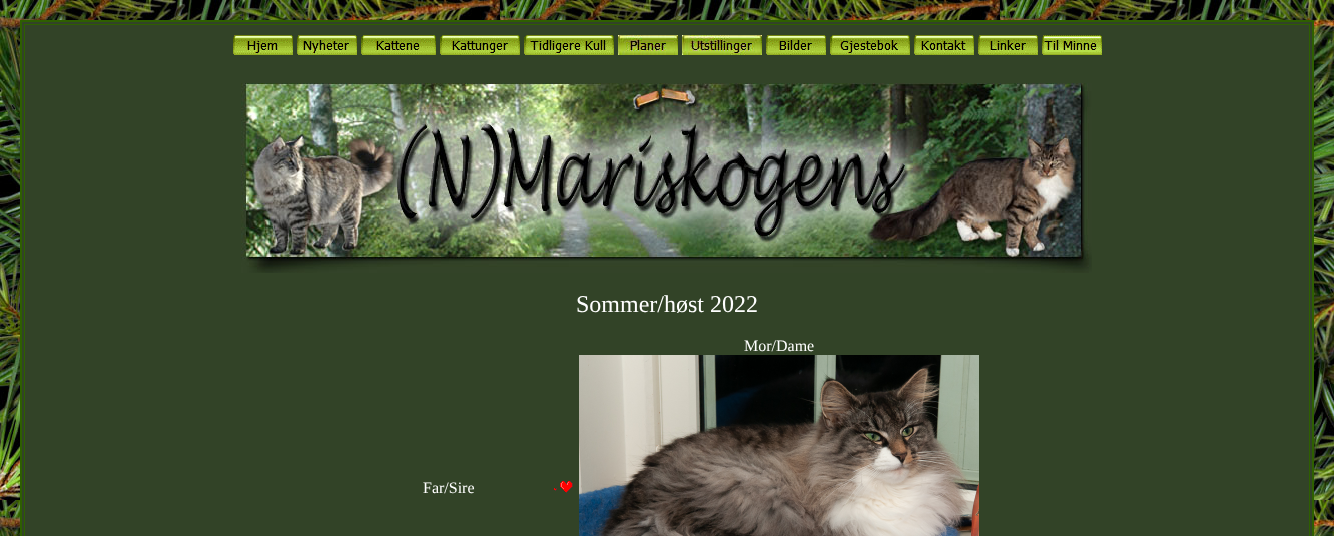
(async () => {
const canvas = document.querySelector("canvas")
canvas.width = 1334
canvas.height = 536
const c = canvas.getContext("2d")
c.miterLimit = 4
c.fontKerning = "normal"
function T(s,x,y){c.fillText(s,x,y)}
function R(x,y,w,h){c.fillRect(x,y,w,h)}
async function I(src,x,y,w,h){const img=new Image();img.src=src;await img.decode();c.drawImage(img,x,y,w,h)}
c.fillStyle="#fff"
R(0,0,1334,536)
await I("1.png",0,0,1334,536)
c.fillStyle="#324327"
c.beginPath()
c.rect(21,21,1292,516)
c.fill()
c.strokeStyle="#2e5f00"
c.lineWidth=2
c.stroke()
c.lineWidth=1
c.strokeRect(24.5,24.5,1285,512)
await I("2.png",233,35,60,20)
await I("3.png",297,35,60,20)
await I("4.png",361,35,75,20)
await I("5.png",440,35,80,20)
await I("6.png",524,35,90,20)
await I("7.png",618,35,60,20)
await I("8.png",682,35,80,20)
await I("9.png",766,35,60,20)
await I("10.png",830,35,80,20)
await I("11.png",914,35,60,20)
await I("12.png",978,35,60,20)
await I("13.png",1042,35,60,20)
await I("14.png",241,83,851,190)
c.font="24px Liberation Serif"
c.fillStyle="#fff"
T("Sommer/høst 2022",576,312)
c.font="16px Liberation Serif"
T("Mor/Dame",744,351)
await I("15.png",579,355,400,181)
T("Far/Sire",423,493)
await I("16.png",554,481,19,12)
})()
